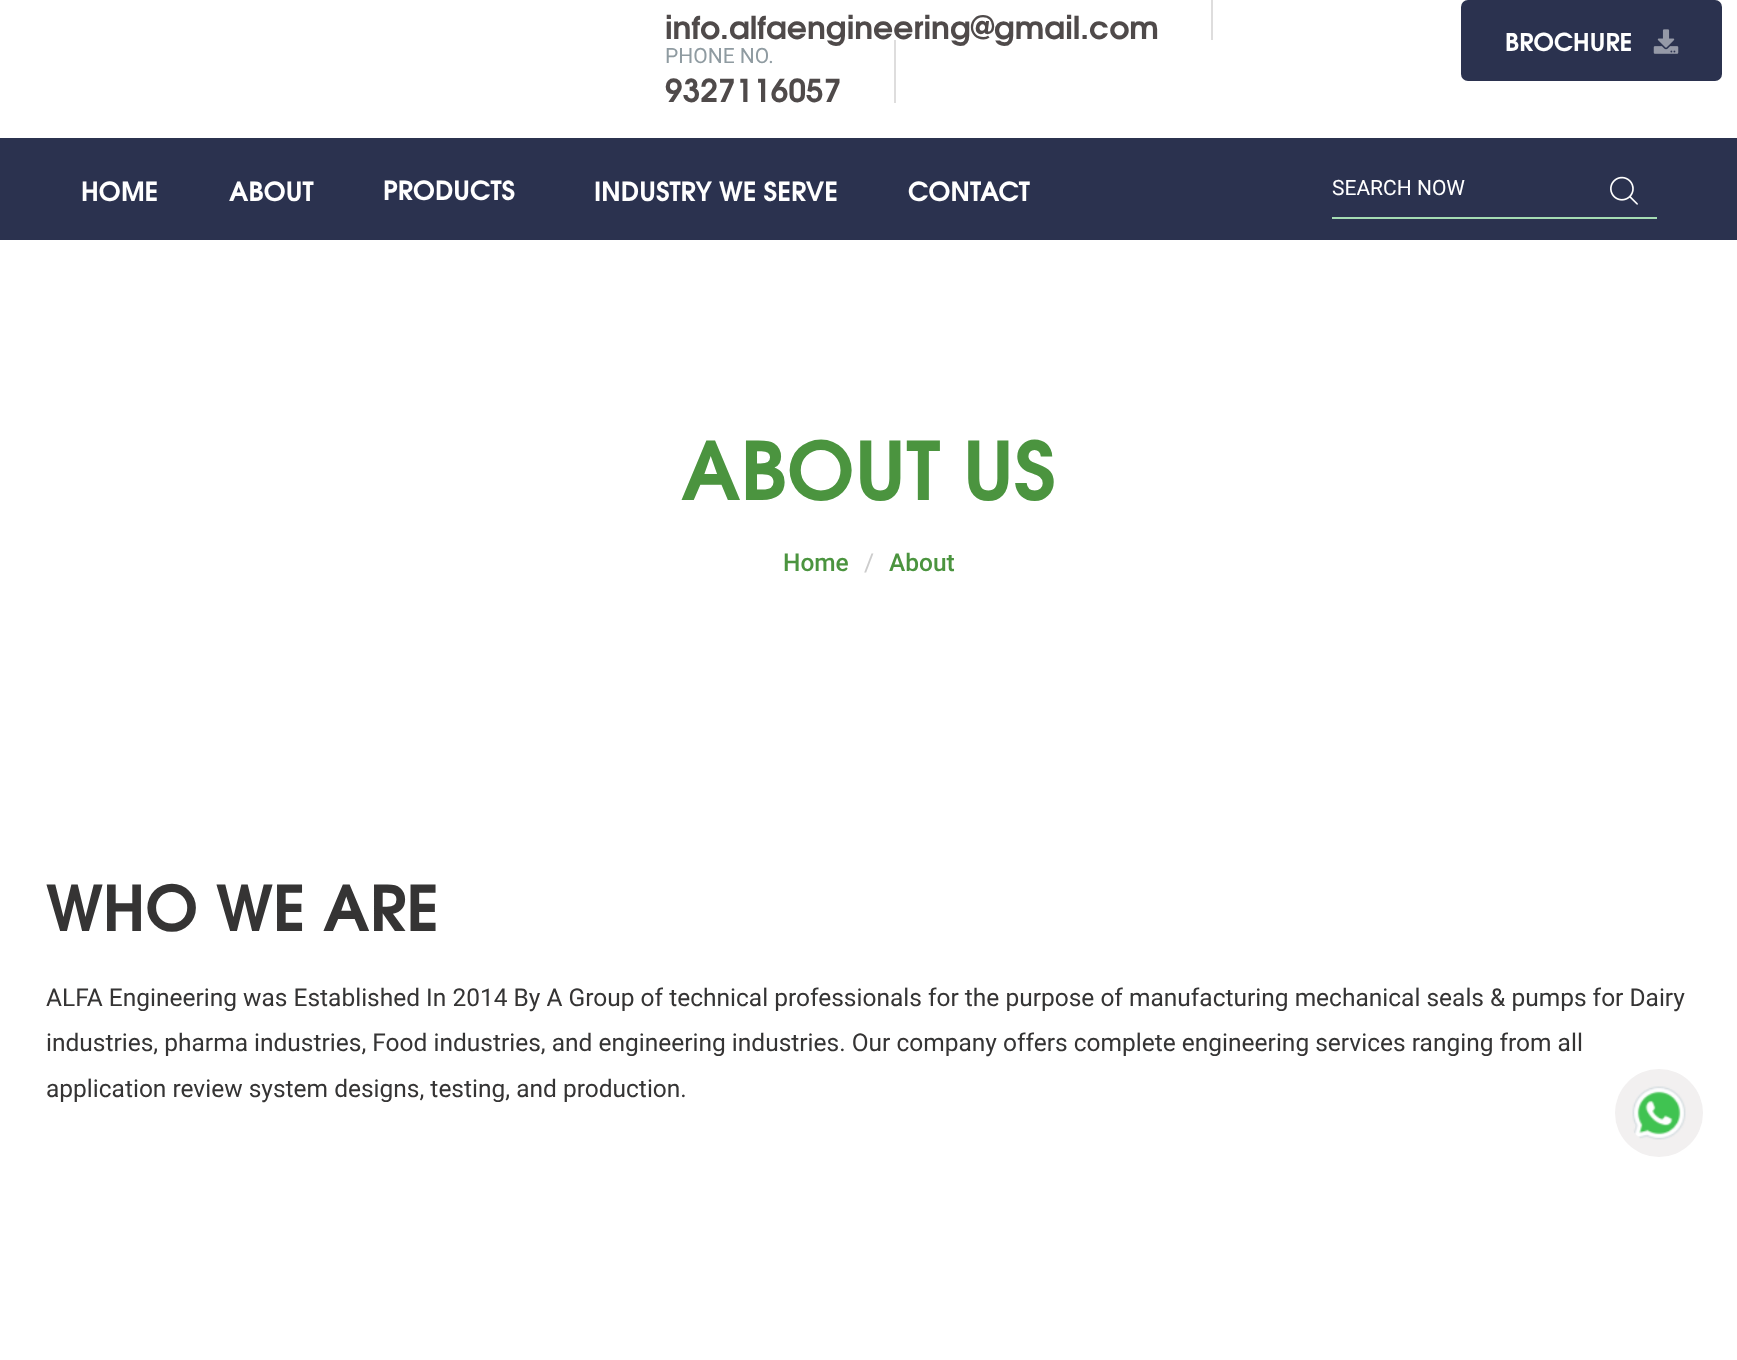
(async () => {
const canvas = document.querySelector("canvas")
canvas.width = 1737
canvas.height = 1360
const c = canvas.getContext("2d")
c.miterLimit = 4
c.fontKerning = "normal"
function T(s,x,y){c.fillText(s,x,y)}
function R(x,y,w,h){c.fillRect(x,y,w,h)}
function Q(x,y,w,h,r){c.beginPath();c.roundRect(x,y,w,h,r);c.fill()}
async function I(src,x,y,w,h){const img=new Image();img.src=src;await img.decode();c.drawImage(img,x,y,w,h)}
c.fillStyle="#fff"
R(0,0,1737,1360)
c.fillStyle="#dedddd"
R(1211,0,2,40)
c.font="bold 31.5px TeX Gyre Adventor"
c.fillStyle="#4f4a4a"
T("info.alfaengineering@gmail.com",665,39)
c.fillStyle="#dedddd"
R(894,40,2,63)
c.font="21px Roboto"
c.fillStyle="#8f9ba1"
T("PHONE NO.",665,63)
c.font="bold 31.5px TeX Gyre Adventor"
c.fillStyle="#4f4a4a"
T("9327116057",665,102)
c.fillStyle="#2b324f"
Q(1461,0,261,81,7)
c.font="bold 24.5px TeX Gyre Adventor"
c.fillStyle="#fff"
T("BROCHURE",1505,51)
await I("1.png",1653,29,26,25)
c.fillStyle="#2b324f"
R(0,138,1737,102)
c.font="bold 26.25px TeX Gyre Adventor"
c.fillStyle="#fff"
T("HOME",81,201)
T("ABOUT",229,201)
T("PRODUCTS",383,200)
T("INDUSTRY WE SERVE",594,201)
T("CONTACT",908,201)
c.fillStyle="#a5dcb3"
R(1332,217,325,2)
c.font="21px Roboto"
c.fillStyle="#fff"
T("SEARCH NOW",1332,195)
await I("2.png",1610,176,28,29)
c.font="bold 80.5px TeX Gyre Adventor"
c.fillStyle="#4b943f"
T("ABOUT US",681,500)
c.font="500 24.5px Roboto"
T("Home",783,571)
c.font="24.5px Roboto"
c.fillStyle="#ccc"
T("/",864,571)
c.font="500 24.5px Roboto"
c.fillStyle="#4b943f"
T("About",889,571)
c.font="bold 63px TeX Gyre Adventor"
c.fillStyle="#353434"
T("WHO WE ARE",46,931)
c.font="24.5px Roboto"
T("ALFA Engineering was Established In 2014 By A Group of technical professionals for the purpose of manufacturing mechanical seals & pumps for Dairy",46,1006)
T("industries, pharma industries, Food industries, and engineering industries. Our company offers complete engineering services ranging from all",46,1051)
T("application review system designs, testing, and production.",46,1097)
c.fillStyle="#f2f0f0"
c.beginPath()
c.arc(1659,1113,44,0,7)
c.fill()
await I("3.png",1632,1086,54,54)
})()
